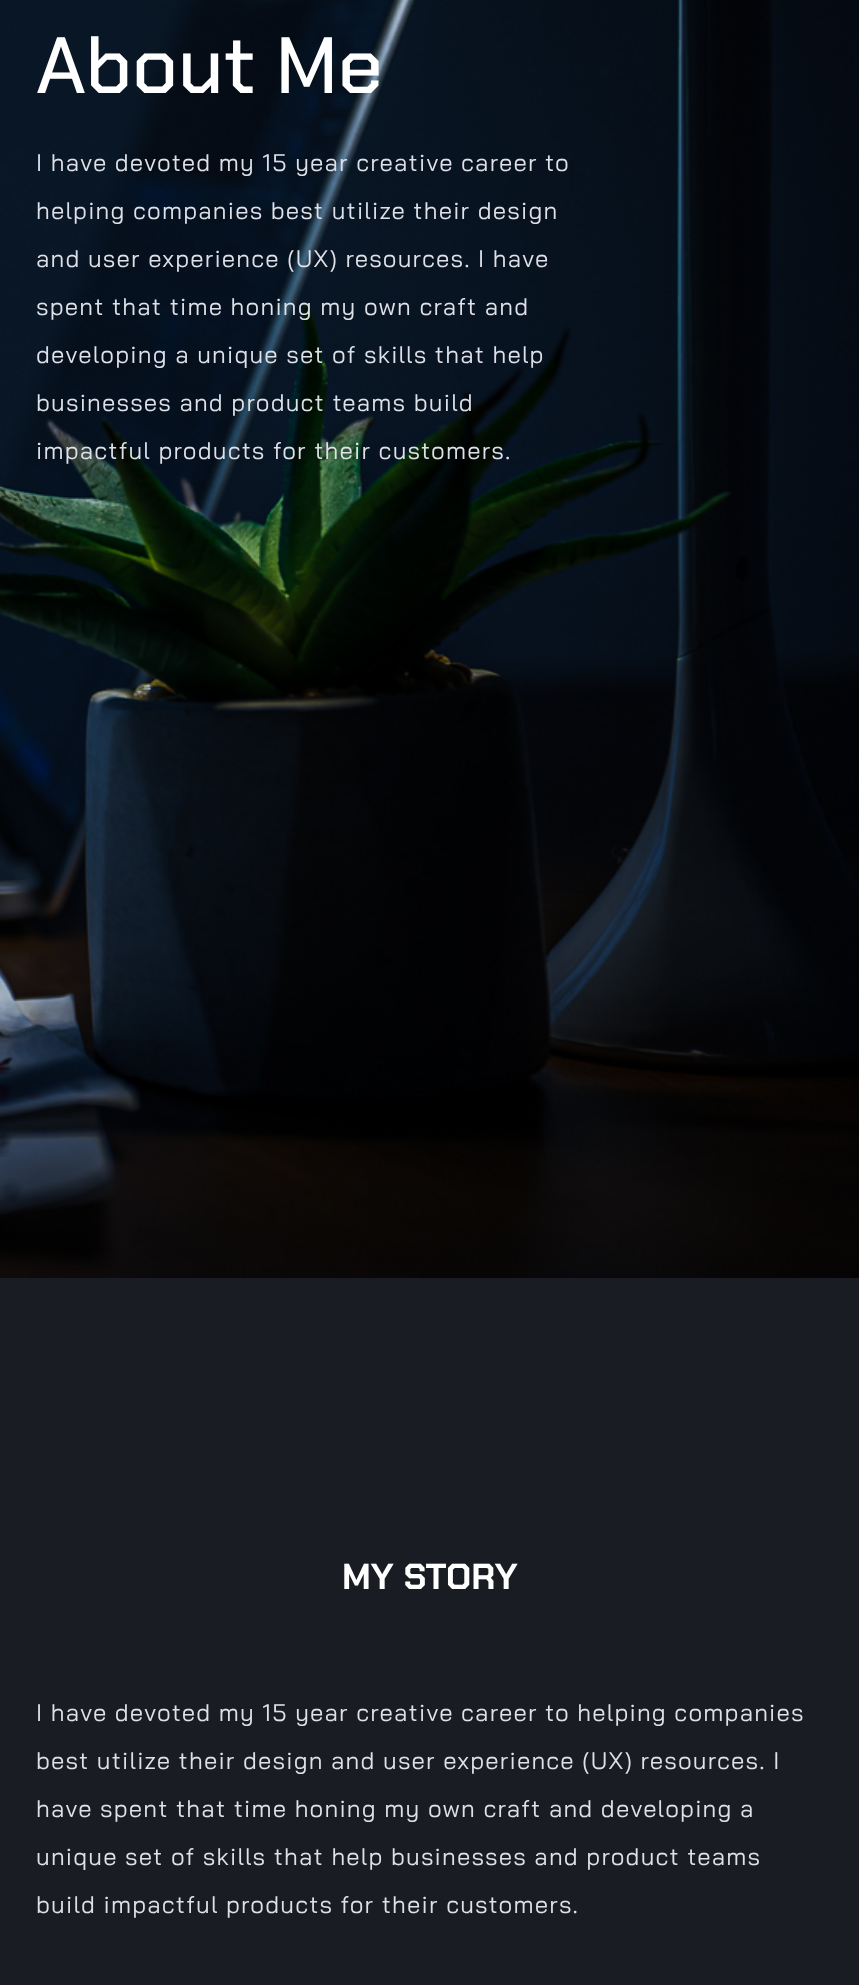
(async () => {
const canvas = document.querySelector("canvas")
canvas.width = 859
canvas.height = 1985
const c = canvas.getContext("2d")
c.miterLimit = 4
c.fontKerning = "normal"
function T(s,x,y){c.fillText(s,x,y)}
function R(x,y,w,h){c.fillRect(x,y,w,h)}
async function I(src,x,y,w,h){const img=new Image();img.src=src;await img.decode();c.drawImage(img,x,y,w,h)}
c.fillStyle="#191d23"
R(0,0,859,1985)
await I("1.png",0,0,859,1278)
c.font="500 79.5px Chakra Petch"
c.fillStyle="#fff"
T("About Me",36,93)
c.letterSpacing="1.2px"
c.font="24px Bai Jamjuree"
c.fillStyle="#dfe1e9"
T("I have devoted my 15 year creative career to",36,171)
T("helping companies best utilize their design",36,219)
T("and user experience (UX) resources. I have",36,267)
T("spent that time honing my own craft and",36,315)
T("developing a unique set of skills that help",36,363)
T("businesses and product teams build",36,411)
T("impactful products for their customers.",36,459)
c.letterSpacing="0px"
c.font="bold 36px Chakra Petch"
c.fillStyle="#fff"
T("MY STORY",342,1589)
c.letterSpacing="1.2px"
c.font="24px Bai Jamjuree"
c.fillStyle="#dfe1e9"
T("I have devoted my 15 year creative career to helping companies",36,1721)
T("best utilize their design and user experience (UX) resources. I",36,1769)
T("have spent that time honing my own craft and developing a",36,1817)
T("unique set of skills that help businesses and product teams",36,1865)
T("build impactful products for their customers.",36,1913)
})()
